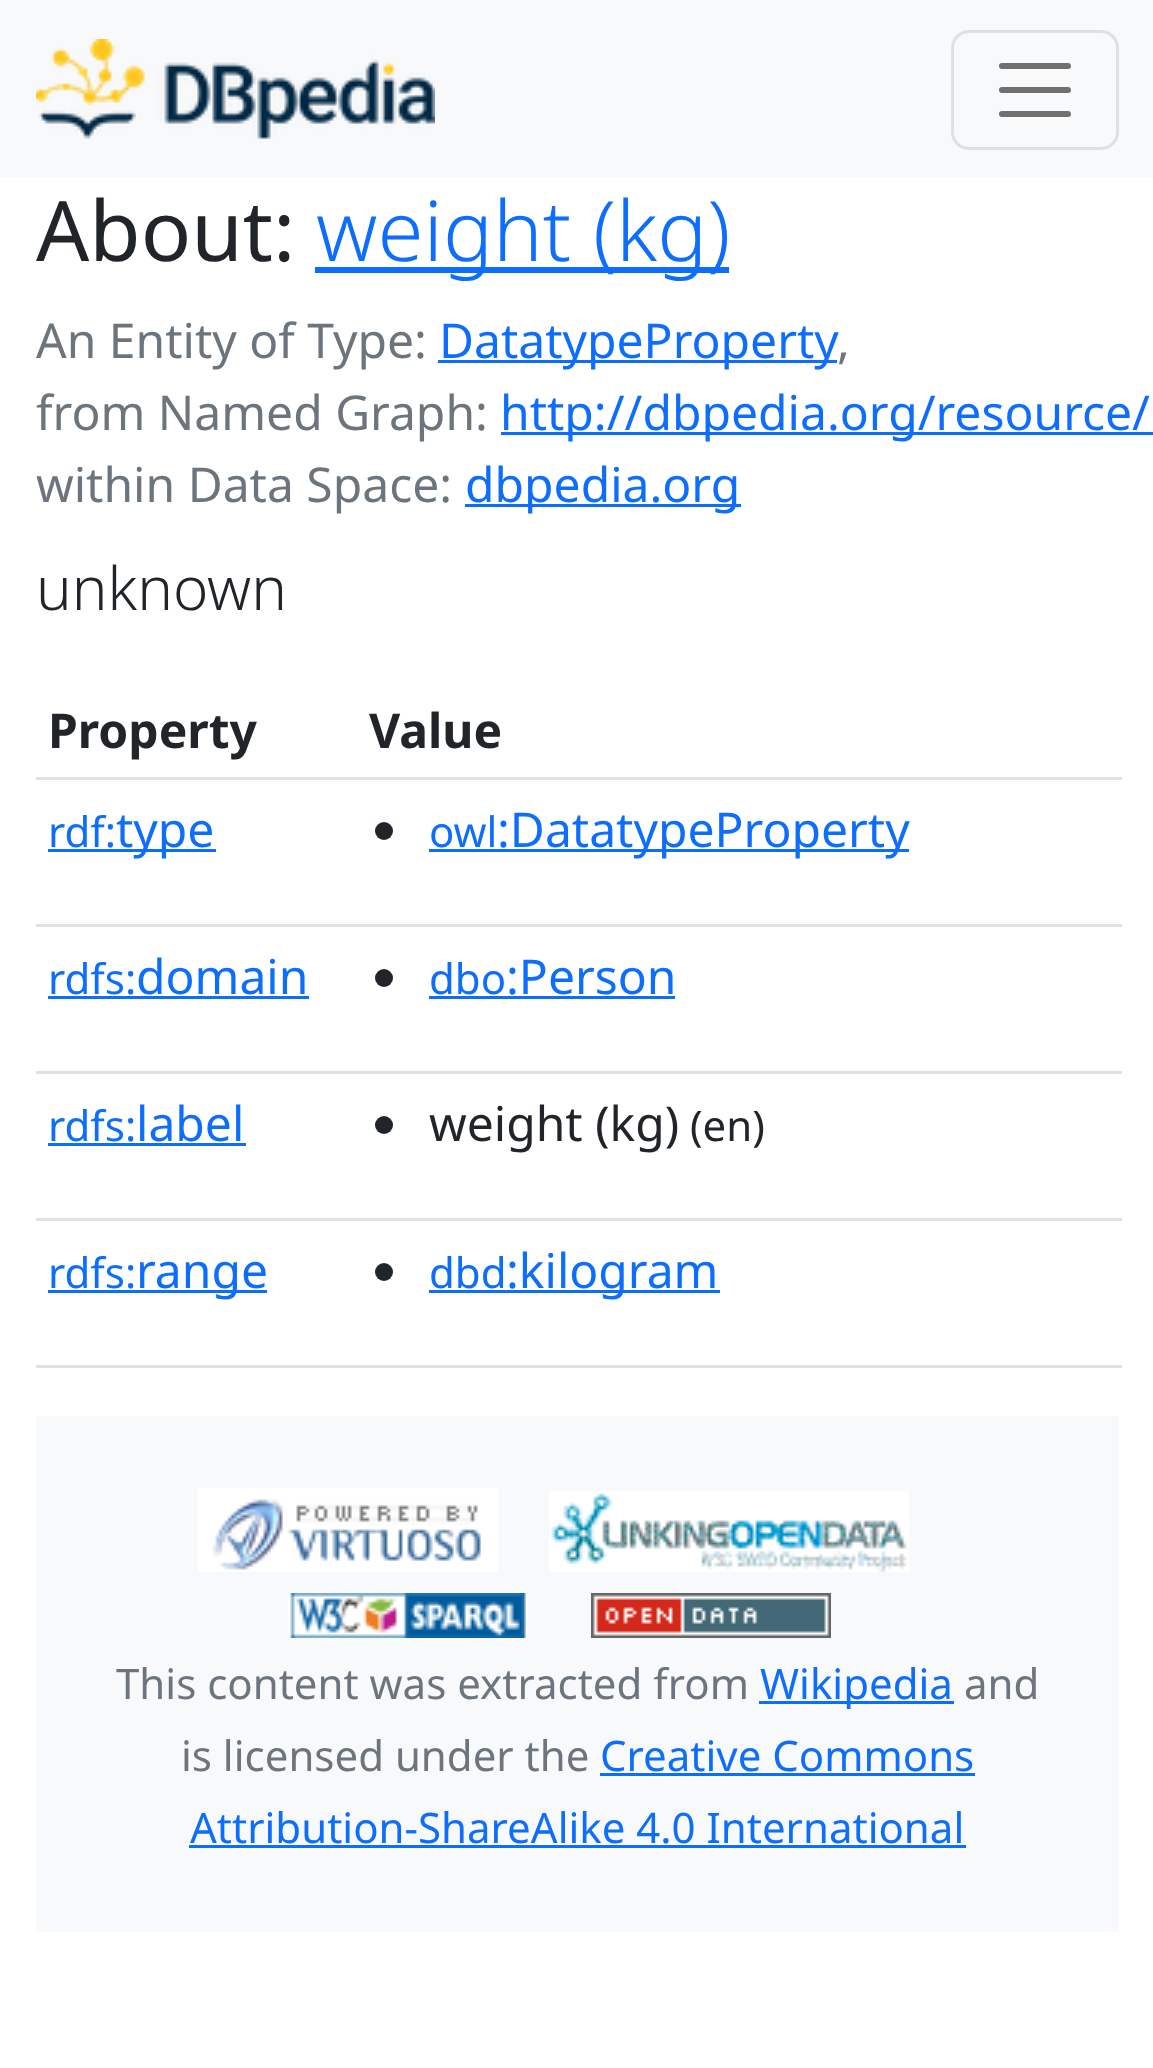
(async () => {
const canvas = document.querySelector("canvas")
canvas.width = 1153
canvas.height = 2068
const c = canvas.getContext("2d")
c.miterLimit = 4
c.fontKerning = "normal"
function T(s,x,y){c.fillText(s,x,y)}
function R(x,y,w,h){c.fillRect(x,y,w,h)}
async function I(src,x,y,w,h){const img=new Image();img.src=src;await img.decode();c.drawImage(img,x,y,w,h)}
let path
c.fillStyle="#fff"
R(0,0,1153,2068)
c.fillStyle="#f8f9fa"
R(0,0,1153,177)
await I("1.png",36,39,399,100)
c.beginPath()
c.roundRect(952.5,31.5,165,117,16.5)
c.strokeStyle="#dfe0e1"
c.lineWidth=3
c.stroke()
path = new Path2D("M1002 66h66m-66 24h66m-66 24h66")
c.strokeStyle="#707071"
c.lineWidth=6
c.lineCap="round"
c.stroke(path)
c.font="83.5px Noto Sans"
c.fillStyle="#212529"
T("About:",36,261)
c.fillStyle="#0d6efd"
R(315,267,414,6)
c.font="300 83.5px Noto Sans"
T("weight (kg)",316,261)
c.font="48px Noto Sans"
c.fillStyle="#6c757d"
T("An Entity of Type:",36,358)
c.fillStyle="#0d6efd"
R(438,360,399,3)
T("DatatypeProperty",439,358)
c.fillStyle="#6c757d"
T(",",837,358)
T("from Named Graph:",36,430)
c.fillStyle="#0d6efd"
R(501,432,652,3)
T("http://dbpedia.org/resource/",500,430)
c.fillStyle="#6c757d"
T("within Data Space:",36,502)
c.fillStyle="#0d6efd"
R(465,504,276,3)
T("dbpedia.org",465,502)
c.font="300 60px Noto Sans"
c.fillStyle="#212529"
T("unknown",36,610)
c.font="bold 48px Noto Sans"
T("Property",48,748)
c.fillStyle="#dee2e6"
R(36,777,1086,3)
c.fillStyle="#212529"
T("Value",369,748)
c.font="42px Noto Sans"
c.fillStyle="#0d6efd"
T("rdf:",48,847)
R(48,849,168,3)
c.font="48px Noto Sans"
T("type",116,847)
c.fillStyle="#dee2e6"
R(36,924,1086,3)
c.fillStyle="#212529"
c.beginPath()
c.arc(384,831,9,0,7)
c.fill()
c.font="42px Noto Sans"
c.fillStyle="#0d6efd"
T("owl",429,847)
R(429,849,480,3)
c.font="48px Noto Sans"
T(":DatatypeProperty",497,847)
c.font="42px Noto Sans"
T("rdfs:",48,994)
R(48,996,261,3)
c.font="48px Noto Sans"
T("domain",136,994)
c.fillStyle="#dee2e6"
R(36,1071,1086,3)
c.fillStyle="#212529"
c.beginPath()
c.arc(384,978,9,0,7)
c.fill()
c.font="42px Noto Sans"
c.fillStyle="#0d6efd"
T("dbo",429,994)
R(429,996,246,3)
c.font="48px Noto Sans"
T(":Person",506,994)
c.font="42px Noto Sans"
T("rdfs:",48,1141)
R(48,1143,198,3)
c.font="48px Noto Sans"
T("label",136,1141)
c.fillStyle="#dee2e6"
R(36,1218,1086,3)
c.fillStyle="#212529"
c.beginPath()
c.arc(384,1125,9,0,7)
c.fill()
T("weight (kg)",429,1141)
c.font="42px Noto Sans"
T("(en)",690,1141)
c.fillStyle="#0d6efd"
T("rdfs:",48,1288)
R(48,1290,219,3)
c.font="48px Noto Sans"
T("range",136,1288)
c.fillStyle="#dee2e6"
R(36,1365,1086,3)
c.fillStyle="#212529"
c.beginPath()
c.arc(384,1272,9,0,7)
c.fill()
c.font="42px Noto Sans"
c.fillStyle="#0d6efd"
T("dbd",429,1288)
R(429,1290,291,3)
c.font="48px Noto Sans"
T(":kilogram",506,1288)
c.fillStyle="#f8f9fa"
R(36,1416,1083,516)
await I("2.png",198,1488,300,84)
await I("3.png",549,1491,360,81)
await I("4.png",288,1593,240,45)
await I("5.png",591,1593,240,45)
c.font="42px Noto Sans"
c.fillStyle="#6c757d"
T("This content was extracted from",116,1699)
c.fillStyle="#0d6efd"
R(759,1701,195,3)
T("Wikipedia",760,1699)
c.fillStyle="#6c757d"
T("and",964,1699)
T("is licensed under the",181,1771)
c.fillStyle="#0d6efd"
T("Creative Commons",600,1771)
R(600,1773,375,3)
T("Attribution-ShareAlike 4.0 International",190,1843)
R(189,1845,777,3)
})()
